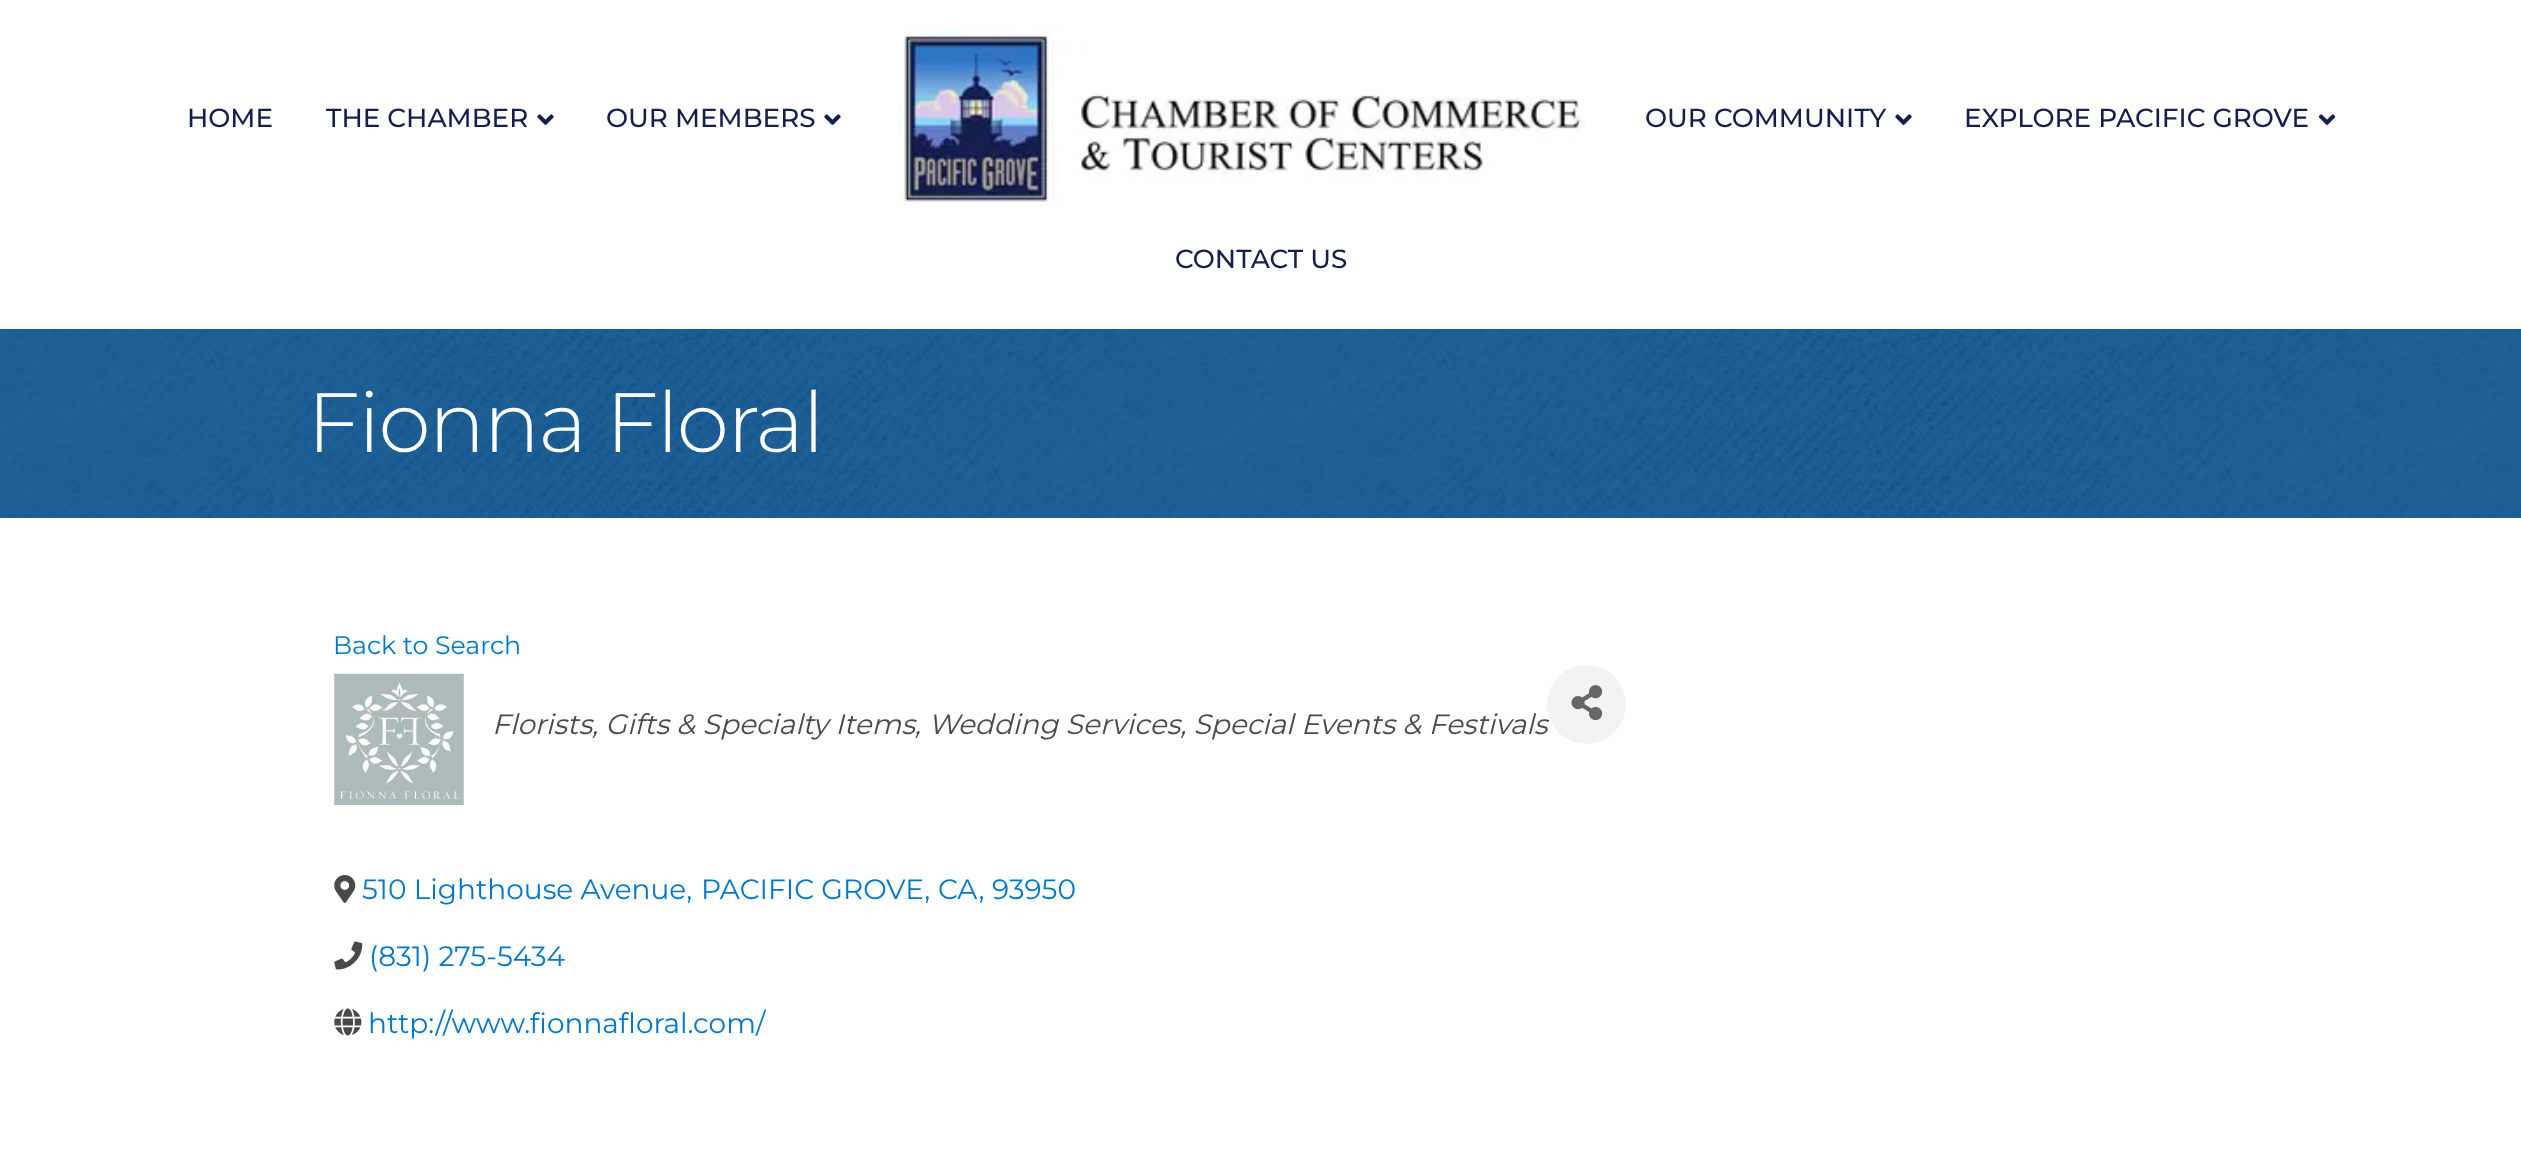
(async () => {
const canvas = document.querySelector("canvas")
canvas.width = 2521
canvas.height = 1167
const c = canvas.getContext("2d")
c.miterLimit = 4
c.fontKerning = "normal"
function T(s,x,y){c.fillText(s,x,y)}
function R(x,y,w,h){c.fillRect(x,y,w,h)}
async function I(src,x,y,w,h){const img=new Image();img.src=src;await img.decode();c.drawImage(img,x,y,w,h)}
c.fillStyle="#fff"
R(0,0,2521,1167)
c.font="500 26.25px Montserrat"
c.fillStyle="#161e4d"
T("HOME",187,127)
T("THE CHAMBER",326,127)
await I("1.png",537,114,17,11)
T("OUR MEMBERS",606,127)
await I("1.png",824,114,17,11)
await I("2.png",899,26,687,182)
T("OUR COMMUNITY",1645,127)
await I("1.png",1895,114,17,11)
T("EXPLORE PACIFIC GROVE",1964,127)
await I("3.png",2318,114,18,11)
T("CONTACT US",1175,268)
await I("4.png",0,329,2521,189)
c.letterSpacing="-1.75px"
c.font="300 84px Montserrat"
c.fillStyle="#fff"
T("Fionna Floral",307,452)
c.letterSpacing="0px"
c.font="25.25px Montserrat"
c.fillStyle="#0077c8"
T("Back to Search",333,654)
await I("5.png",334,673,130,132)
c.font="italic 28px Montserrat"
c.fillStyle="#494949"
T("Florists, Gifts & Specialty Items, Wedding Services, Special Events & Festivals",492,734)
c.fillStyle="#f3f3f3"
c.beginPath()
c.arc(1586.5,704.5,39.5,0,7)
c.fill()
await I("6.png",1571,685,32,36)
await I("7.png",334,875,22,28)
c.font="28px Montserrat"
c.fillStyle="#0077c8"
T("510 Lighthouse Avenue,",362,899)
T("PACIFIC GROVE,",701,899)
T("CA,",938,899)
T("93950",992,899)
await I("8.png",334,941,29,29)
T("(831) 275-5434",369,966)
await I("9.png",334,1008,28,28)
T("http://www.fionnafloral.com/",368,1033)
})()
